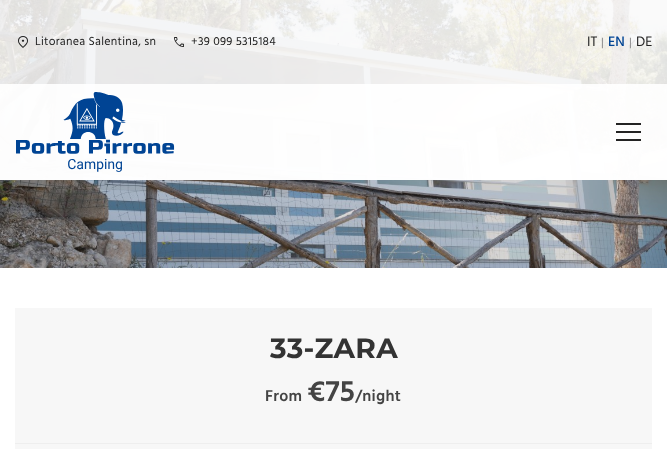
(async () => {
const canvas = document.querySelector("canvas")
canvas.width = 667
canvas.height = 449
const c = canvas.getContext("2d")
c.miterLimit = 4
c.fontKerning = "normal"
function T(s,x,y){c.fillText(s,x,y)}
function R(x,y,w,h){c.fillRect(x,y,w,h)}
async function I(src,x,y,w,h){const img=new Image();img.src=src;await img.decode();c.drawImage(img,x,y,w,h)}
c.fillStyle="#fff"
R(0,0,667,449)
await I("4.png",0,0,667,268)
c.fillStyle="#ffffffd9"
R(0,0,667,84)
await I("1.png",18,36,10,12)
c.letterSpacing="0.25px"
c.font="12px Hind"
c.fillStyle="#232323"
T("Litoranea Salentina, sn",35,45)
await I("2.png",174,37,10,10)
T("+39 099 5315184",191,45)
c.letterSpacing="0px"
c.font="14px Hind"
T("IT",587,46)
c.font="500 12px Hind"
c.fillStyle="#969696"
T("|",601,46)
c.font="500 14px Hind"
c.fillStyle="#004494"
T("EN",608,46)
c.font="500 12px Hind"
c.fillStyle="#969696"
T("|",629,46)
c.font="14px Hind"
c.fillStyle="#232323"
T("DE",636,46)
c.fillStyle="#fffffffc"
R(0,84,667,96)
await I("3.png",16,92,159,80)
c.fillStyle="#232323"
R(616,131,25,2)
R(616,123,25,2)
R(616,139,25,2)
c.fillStyle="#f7f7f7"
R(15,308,637,141)
c.letterSpacing="0.25px"
c.font="bold 28px Montserrat"
c.fillStyle="#333"
T("33-ZARA",270,358)
c.font="600 16px Hind"
c.fillStyle="#444"
T("From",265,401)
c.font="600 30px Hind"
T("€75",307,401)
c.font="600 16px Hind"
T("/night",355,401)
c.fillStyle="#eee"
R(15,443,637,1)
})()
